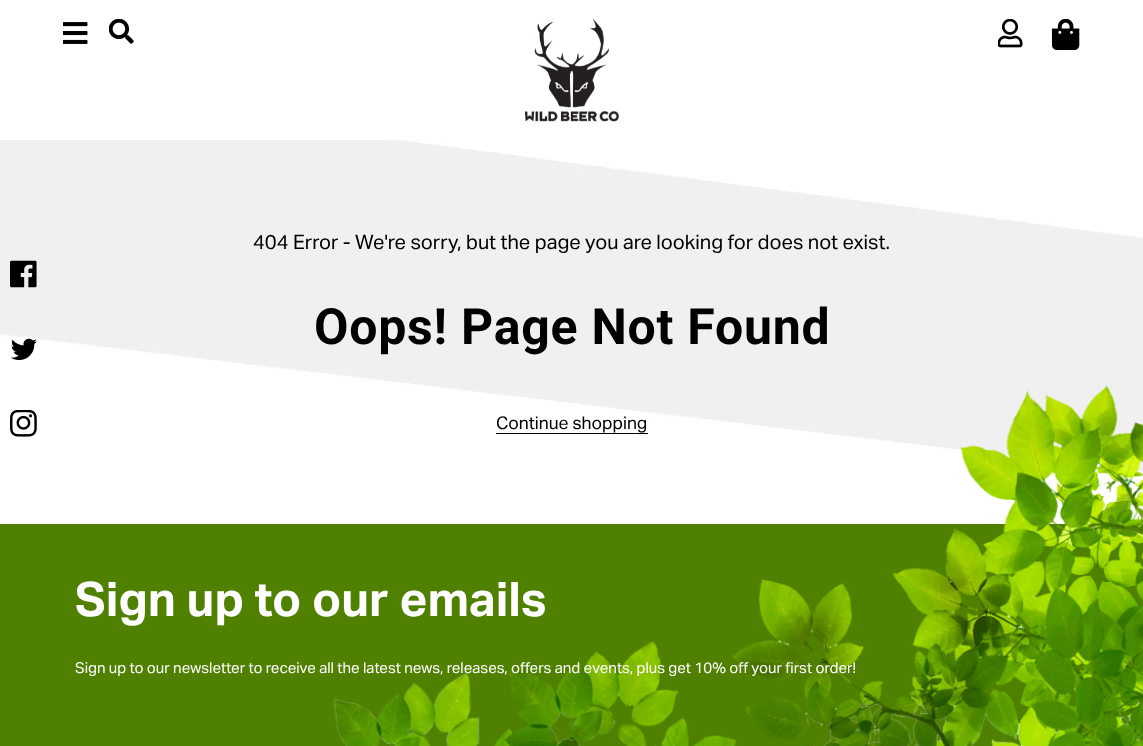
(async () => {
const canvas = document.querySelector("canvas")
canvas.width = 1143
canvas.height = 746
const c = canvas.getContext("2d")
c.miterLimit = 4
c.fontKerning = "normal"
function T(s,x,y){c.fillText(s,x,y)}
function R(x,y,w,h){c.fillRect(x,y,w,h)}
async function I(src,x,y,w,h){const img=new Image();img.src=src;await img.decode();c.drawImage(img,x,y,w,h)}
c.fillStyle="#fff"
R(0,0,1143,746)
await I("1.png",0,140,1143,332)
await I("2.png",63,22,25,22)
await I("3.png",109,19,25,25)
await I("4.png",525,18,94,104)
await I("5.png",998,19,25,29)
await I("6.png",1051,19,29,31)
await I("7.png",10,260,27,28)
await I("8.png",11,338,26,22)
await I("9.png",10,410,27,27)
c.font="20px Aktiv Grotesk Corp"
c.fillStyle="#000"
T("404 Error - We're sorry, but the page you are looking for does not exist.",253,249)
c.letterSpacing="0.75px"
c.font="bold 50px Roboto"
T("Oops! Page Not Found",314,344)
c.letterSpacing="0px"
c.font="17.5px Aktiv Grotesk Corp"
T("Continue shopping",496,429)
R(496,433,152,1)
c.fillStyle="#4f8000"
R(0,524,1143,222)
await I("10.png",333,386,810,360)
c.font="bold 47.5px Aktiv Grotesk Corp"
c.fillStyle="#fff"
T("Sign up to our emails",75,616)
c.font="15px Aktiv Grotesk Corp"
T("Sign up to our newsletter to receive all the latest news, releases, offers and events, plus get 10% off your first order!",75,673)
})()
